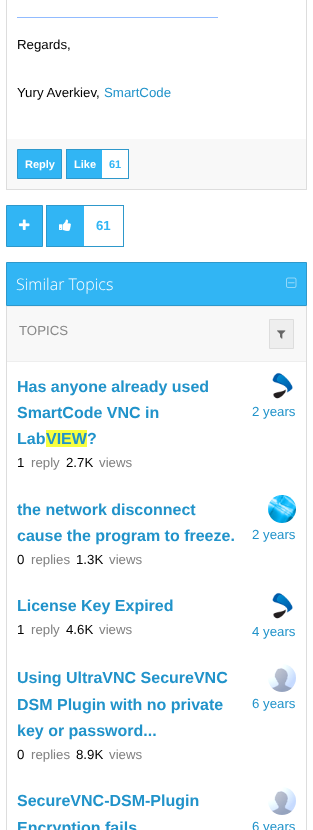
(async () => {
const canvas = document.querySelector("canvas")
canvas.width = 313
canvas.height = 830
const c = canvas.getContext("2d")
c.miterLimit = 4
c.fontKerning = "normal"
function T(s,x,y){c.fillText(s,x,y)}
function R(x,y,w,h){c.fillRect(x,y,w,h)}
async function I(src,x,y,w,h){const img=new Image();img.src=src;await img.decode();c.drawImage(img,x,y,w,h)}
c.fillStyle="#fff"
R(0,0,313,830)
c.fillStyle="#ddd"
R(306,0,1,189)
R(6,0,1,189)
c.fillStyle="#91bbff"
R(17,17,201,1)
c.font="13.25px Liberation Sans"
c.fillStyle="#000"
T("Regards,",17,49)
T("Yury Averkiev,",17,97)
c.fillStyle="#2193ca"
T("SmartCode",104,97)
c.fillStyle="#f8f8f8"
R(7,139,299,50)
c.fillStyle="#31b5f4"
c.beginPath()
c.rect(17.5,149.5,44,29)
c.fill()
c.strokeStyle="#2e98cb"
c.stroke()
c.font="bold 11px Liberation Sans"
c.fillStyle="#fff"
T("Reply",25,168)
c.fillStyle="#31b5f4"
R(67,150,35,28)
c.strokeRect(66.5,149.5,62,29)
c.fillStyle="#fff"
T("Like",74,168)
R(102,150,26,28)
c.fillStyle="#31b5f4"
T("61",109,168)
c.fillStyle="#ddd"
R(6,189,301,1)
c.fillStyle="#31b5f4"
c.beginPath()
c.rect(6.5,205.5,36,41)
c.fill()
c.stroke()
await I("1.png",19,219,11,11)
R(47,206,37,40)
c.strokeRect(46.5,205.5,77,41)
await I("2.png",59,219,12,12)
c.font="bold 13.25px Liberation Sans"
T("61",96,230)
c.beginPath()
c.rect(6.5,262.5,300,43)
c.fill()
c.stroke()
c.font="300 16px Open Sans"
c.fillStyle="#fff"
T("Similar Topics",16,290)
await I("3.png",286,277,11,11)
c.fillStyle="#ddd"
R(306,306,1,524)
R(6,306,1,524)
c.fillStyle="#f8f8f8"
R(7,307,299,54)
c.fillStyle="#eee"
R(7,306,299,1)
R(7,361,299,1)
c.font="13.25px Liberation Sans"
c.fillStyle="#888"
T("TOPICS",19,335)
c.fillStyle="#eee"
c.beginPath()
c.rect(269.5,319.5,24,29)
c.fill()
c.strokeStyle="#ddd"
c.stroke()
await I("4.png",277,330,9,9)
c.font="bold 16px Liberation Sans"
c.fillStyle="#2193ca"
T("Has anyone already used",17,392)
T("SmartCode VNC in",17,418)
T("Lab",17,444)
c.fillStyle="#f8ff40"
R(46,430,41,17)
c.fillStyle="#2193ca"
T("VIEW?",46,444)
c.font="13.25px Liberation Sans"
c.fillStyle="#000"
T("1",17,467)
c.fillStyle="#808080"
T("reply",31,467)
c.fillStyle="#000"
T("2.7K",66,467)
c.fillStyle="#808080"
T("views",99,467)
await I("5.png",272,372,21,27)
c.fillStyle="#2193ca"
T("2 years",252,416)
c.font="bold 16px Liberation Sans"
T("the network disconnect",17,515)
T("cause the program to freeze.",17,541)
c.font="13.25px Liberation Sans"
c.fillStyle="#000"
T("0",17,564)
c.fillStyle="#808080"
T("replies",31,564)
c.fillStyle="#000"
T("1.3K",76,564)
c.fillStyle="#808080"
T("views",109,564)
await I("6.png",268,495,28,28)
c.fillStyle="#2193ca"
T("2 years",252,539)
c.font="bold 16px Liberation Sans"
T("License Key Expired",17,611)
c.font="13.25px Liberation Sans"
c.fillStyle="#000"
T("1",17,634)
c.fillStyle="#808080"
T("reply",31,634)
c.fillStyle="#000"
T("4.6K",66,634)
c.fillStyle="#808080"
T("views",99,634)
await I("5.png",272,592,21,27)
c.fillStyle="#2193ca"
T("4 years",252,636)
c.font="bold 16px Liberation Sans"
T("Using UltraVNC SecureVNC",17,683)
T("DSM Plugin with no private",17,710)
T("key or password...",17,736)
c.font="13.25px Liberation Sans"
c.fillStyle="#000"
T("0",17,759)
c.fillStyle="#808080"
T("replies",31,759)
c.fillStyle="#000"
T("8.9K",76,759)
c.fillStyle="#808080"
T("views",109,759)
await I("7.png",268,664,28,28)
c.fillStyle="#2193ca"
T("6 years",252,708)
c.font="bold 16px Liberation Sans"
T("SecureVNC-DSM-Plugin",17,806)
T("Encryption fails",17,833)
await I("7.png",268,787,28,28)
c.font="13.25px Liberation Sans"
T("6 years",252,831)
})()
